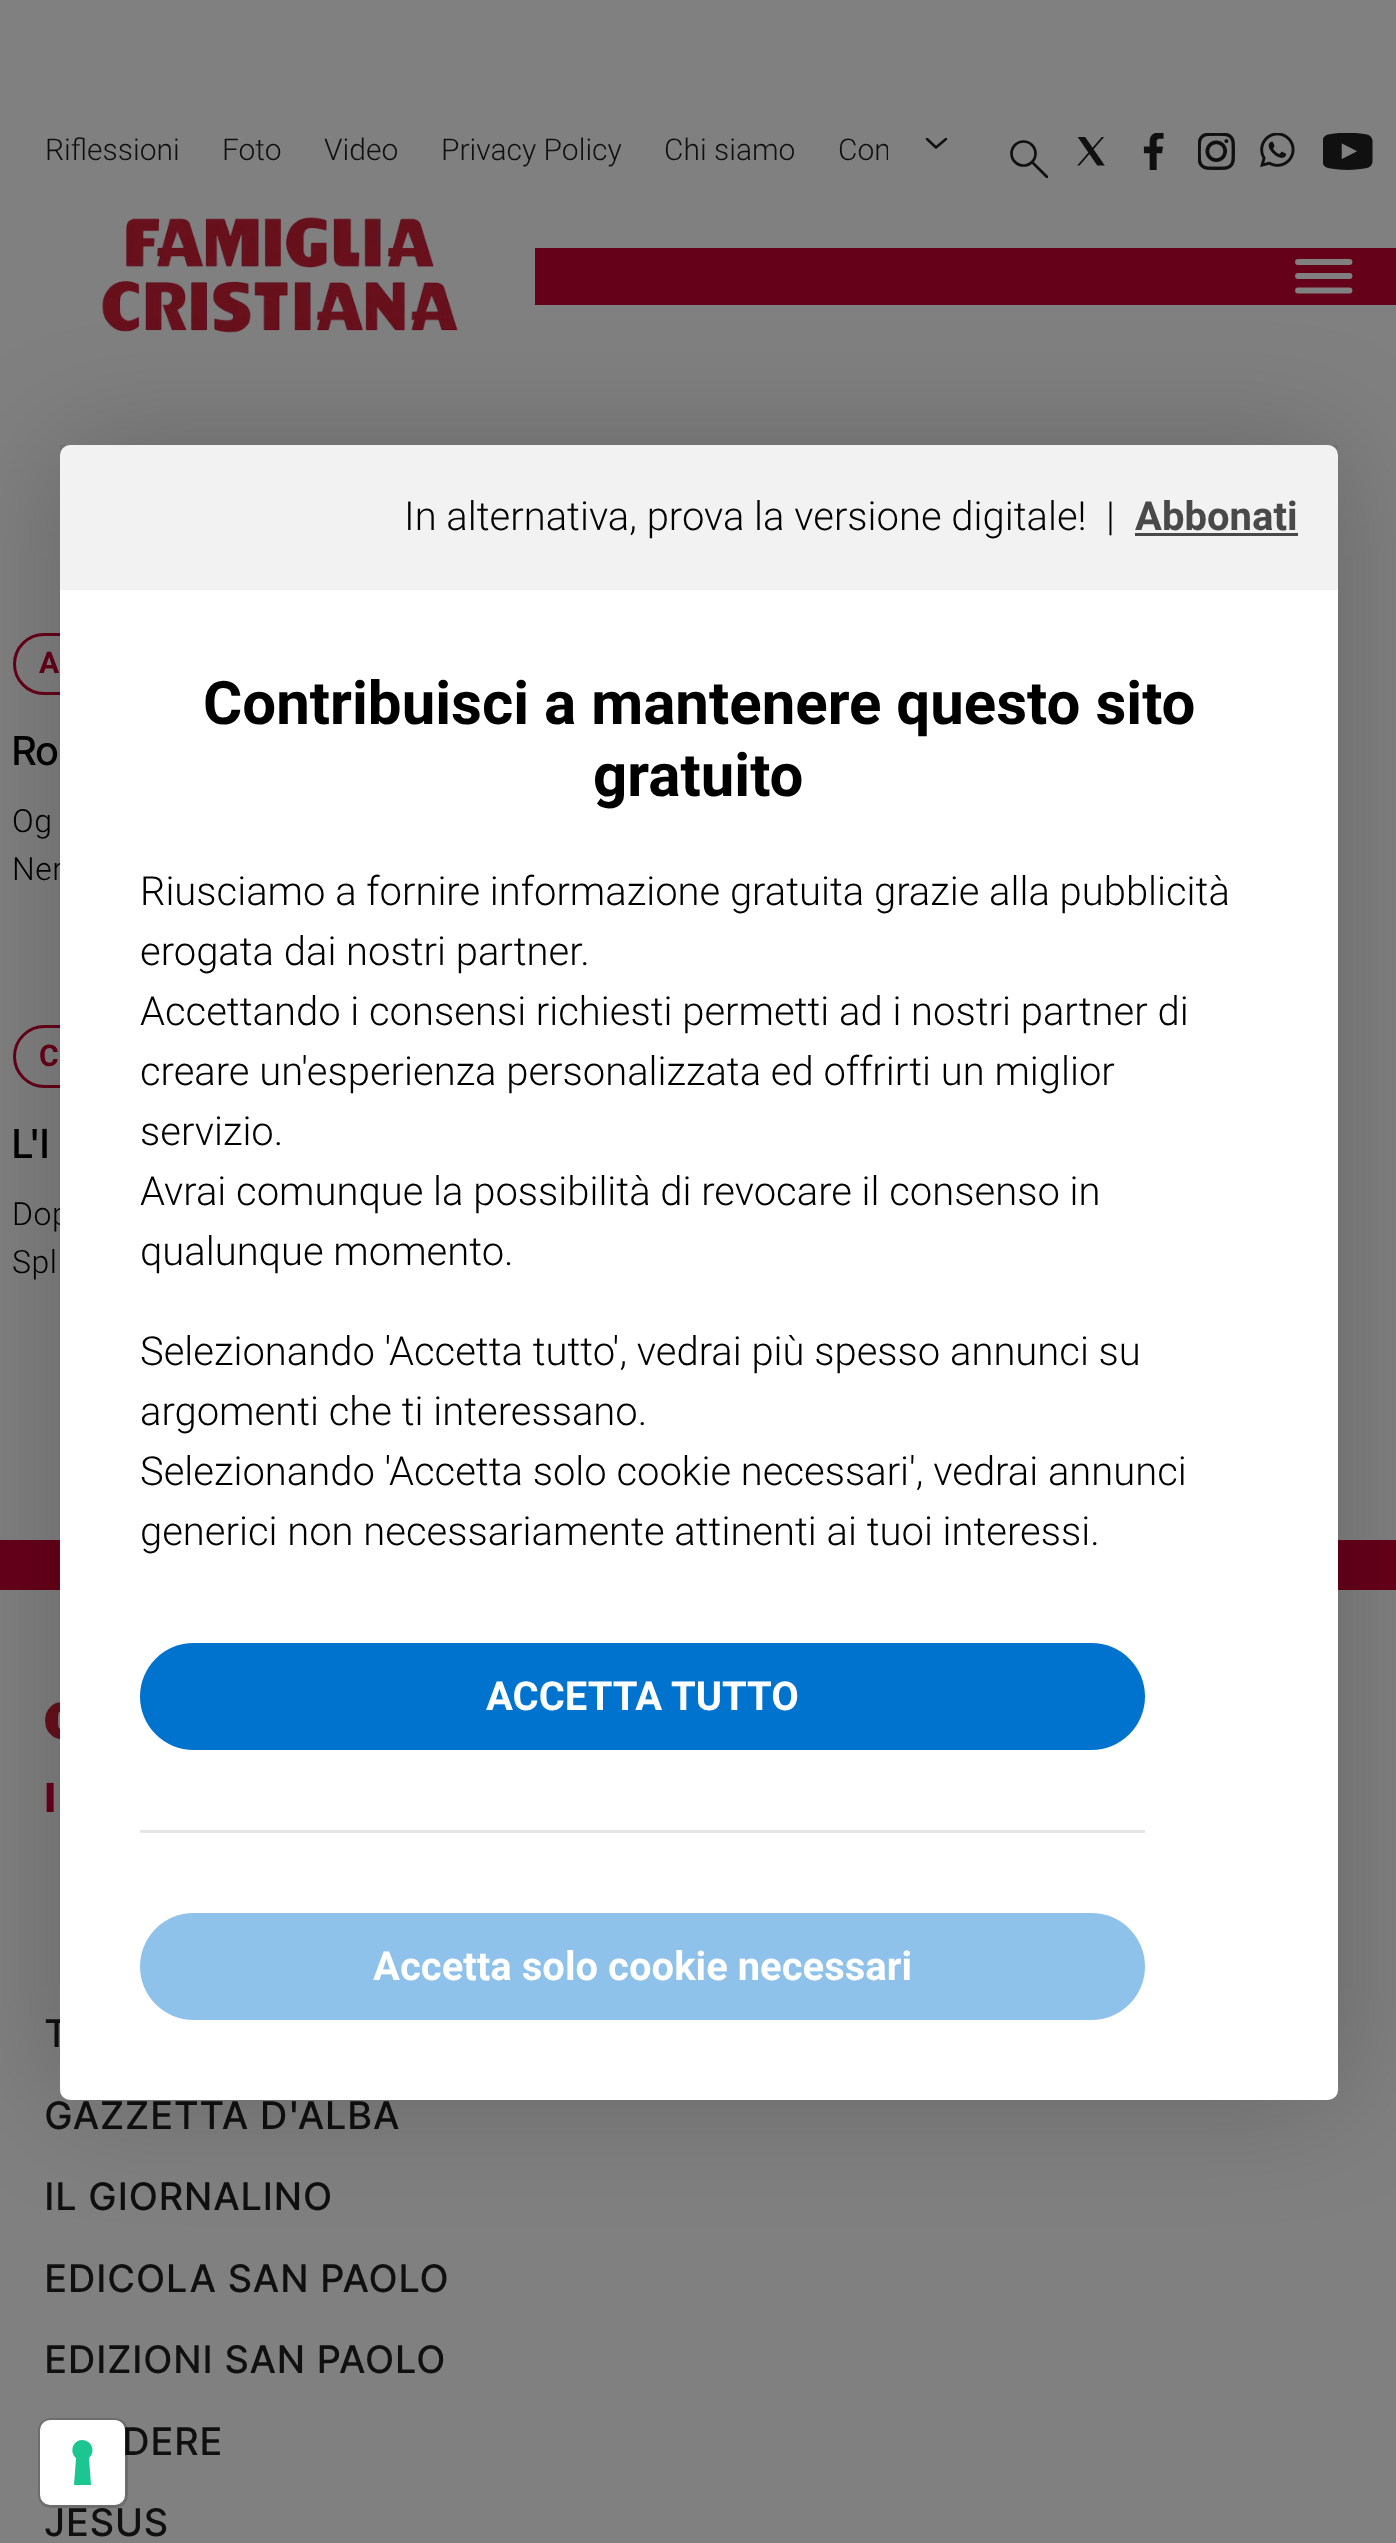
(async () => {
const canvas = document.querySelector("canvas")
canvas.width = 1396
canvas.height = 2543
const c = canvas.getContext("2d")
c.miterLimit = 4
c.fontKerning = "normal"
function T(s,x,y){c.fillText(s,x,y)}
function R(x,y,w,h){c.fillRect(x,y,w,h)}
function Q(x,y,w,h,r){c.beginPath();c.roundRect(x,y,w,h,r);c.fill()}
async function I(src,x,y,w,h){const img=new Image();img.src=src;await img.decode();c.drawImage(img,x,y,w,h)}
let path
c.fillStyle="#808080"
R(0,0,1396,2543)
c.font="300 30px Roboto"
c.fillStyle="#101010"
T("Riflessioni",45,160)
T("Foto",222,160)
T("Video",324,160)
T("Privacy Policy",441,160)
T("Chi siamo",664,160)
T("Con",838,160)
c.fillStyle="#808080"
R(888,146,1,14)
c.save()
c.beginPath()
c.rect(925,138,23,12)
c.clip()
path = new Path2D("M946 139l-10 8.5l-9-8.5")
c.strokeStyle="#111010"
c.lineWidth=2.5
c.lineCap="round"
c.lineJoin="round"
c.stroke(path)
c.restore()
c.beginPath()
c.arc(1023.5,153.5,12,0,7)
c.strokeStyle="#111010"
c.lineWidth=2.7
c.stroke()
c.save()
c.beginPath()
c.rect(1010,140,38,38)
c.clip()
path = new Path2D("M1033 163l14.5 14.5")
c.lineCap="round"
c.stroke(path)
c.restore()
await I("1.png",1077,137,28,29)
await I("2.png",1143,133,21,37)
await I("3.png",1198,133,37,37)
await I("4.png",1260,133,35,35)
await I("5.png",1323,133,50,37)
await I("6.png",102,217,356,116)
c.fillStyle="#66011a"
R(535,248,861,57)
path = new Path2D("M1298 262h51.5m-51.5 14h51.5m-51.5 14.5h51.5")
c.strokeStyle="#808080"
c.lineWidth=5.8
c.lineCap="round"
c.stroke(path)
c.beginPath()
c.roundRect(14.5,634.5,224,59,29.5)
c.strokeStyle="#66011a"
c.lineWidth=3
c.stroke()
c.letterSpacing="2px"
c.font="bold 30px Roboto"
T("A",39,673)
c.letterSpacing="0px"
c.font="500 40px Inter Tight"
c.fillStyle="#000"
T("Ro",12,765)
c.letterSpacing="0.5px"
c.font="300 32px Roboto"
T("Og",12,832)
T("Ner",12,880)
c.beginPath()
c.roundRect(14.5,1026.5,167,60,30)
c.stroke()
c.letterSpacing="2px"
c.font="bold 30px Roboto"
c.fillStyle="#66011a"
T("C",39,1066)
c.letterSpacing="0px"
c.font="500 40px Inter Tight"
c.fillStyle="#000"
T("L'I",12,1158)
c.letterSpacing="0.5px"
c.font="300 32px Roboto"
T("Dop",12,1225)
T("Spl",12,1273)
c.fillStyle="#66011a"
R(0,1540,1396,50)
await I("7.png",45,1702,15,38)
c.letterSpacing="4px"
c.font="800 40px Inter Tight"
T("I",45,1812)
c.letterSpacing="2.4px"
c.font="500 38px Inter Tight"
c.fillStyle="#101010"
T("T",45,2047)
T("GAZZETTA D'ALBA",45,2129)
T("IL GIORNALINO",45,2210)
T("EDICOLA SAN PAOLO",45,2292)
T("EDIZIONI SAN PAOLO",45,2373)
T("DERE",123,2455)
T("JESUS",45,2536)
c.fillStyle="#00000033"
c.filter="blur(60px)"
c.beginPath()
c.roundRect(60,445,1278,1655,10)
c.fill()
c.filter="none"
c.fillStyle="#fff"
Q(60,445,1278,1655,10)
c.fillStyle="#0000000d"
R(60,445,1278,145)
c.letterSpacing="0px"
c.font="300 40px Roboto"
c.fillStyle="#000"
T("In alternativa, prova la versione digitale!",404,530)
T("|",1106,530)
c.font="bold 40px Roboto"
c.fillStyle="#494949"
T("Abbonati",1135,530)
R(1135,533,163,3)
c.font="bold 60px Roboto"
c.fillStyle="#000"
T("Contribuisci a mantenere questo sito",203,724)
T("gratuito",593,796)
c.font="300 40px Roboto"
T("Riusciamo a fornire informazione gratuita grazie alla pubblicità",140,905)
T("erogata dai nostri partner.",140,965)
T("Accettando i consensi richiesti permetti ad i nostri partner di",140,1025)
T("creare un'esperienza personalizzata ed offrirti un miglior",140,1085)
T("servizio.",140,1145)
T("Avrai comunque la possibilità di revocare il consenso in",140,1205)
T("qualunque momento.",140,1265)
T("Selezionando 'Accetta tutto', vedrai più spesso annunci su",140,1365)
T("argomenti che ti interessano.",140,1425)
T("Selezionando 'Accetta solo cookie necessari', vedrai annunci",140,1485)
T("generici non necessariamente attinenti ai tuoi interessi.",140,1545)
c.fillStyle="#0073ce"
Q(140,1643,1005,107,53.5)
c.font="bold 40px Roboto"
c.fillStyle="#fff"
T("ACCETTA TUTTO",486,1710)
c.fillStyle="#e6e6e6"
R(140,1830,1005,3)
c.fillStyle="#8fc2ea"
Q(140,1913,1005,107,53.5)
c.fillStyle="#fff"
T("Accetta solo cookie necessari",373,1980)
c.beginPath()
c.roundRect(39.5,2419.5,87,87,11.5)
c.strokeStyle="#00000026"
c.stroke()
Q(40,2420,85,85,10)
c.fillStyle="#1cc691"
path = new Path2D("M82 2440c10 0 14 12 7 18l2 27h-17l2-27c-7-6-3-18 6-18z")
c.fill(path,"evenodd")
})()
